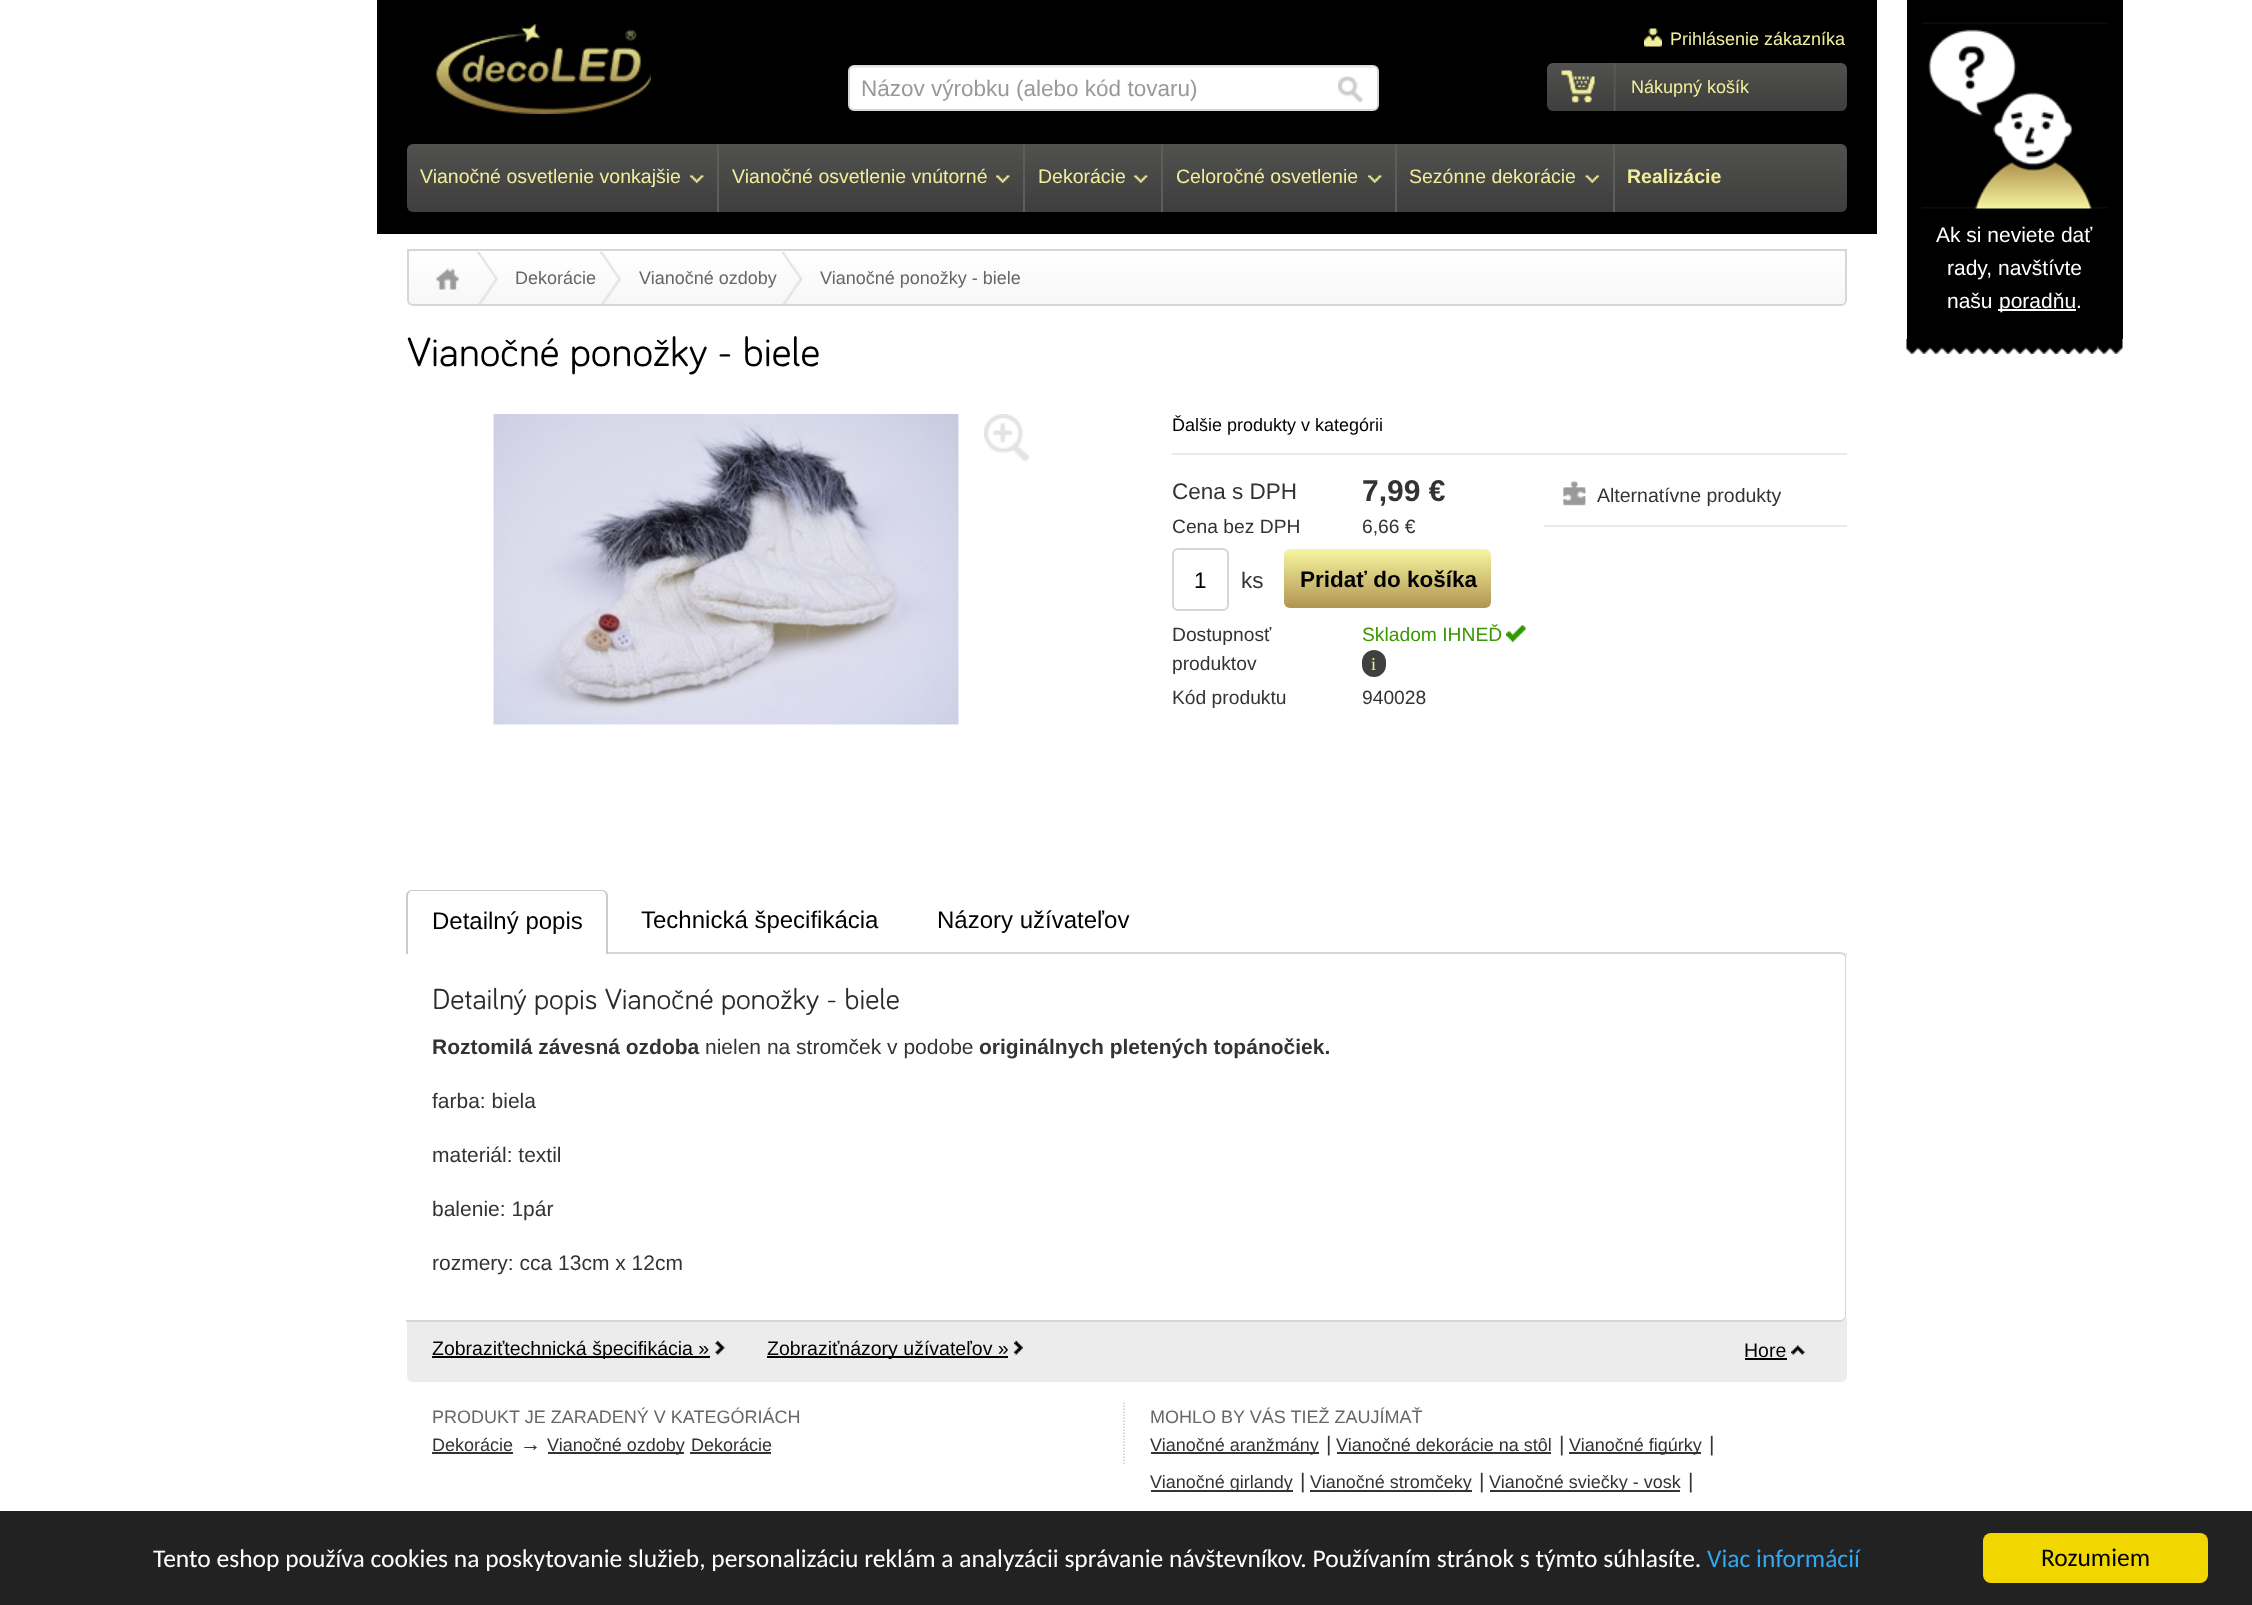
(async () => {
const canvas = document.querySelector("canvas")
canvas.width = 2252
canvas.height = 1605
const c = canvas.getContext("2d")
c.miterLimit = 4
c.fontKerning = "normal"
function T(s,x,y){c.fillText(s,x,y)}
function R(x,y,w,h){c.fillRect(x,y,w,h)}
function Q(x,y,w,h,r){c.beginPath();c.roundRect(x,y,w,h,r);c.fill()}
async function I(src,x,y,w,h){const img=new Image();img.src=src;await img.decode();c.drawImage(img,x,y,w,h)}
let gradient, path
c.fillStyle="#fff"
R(0,0,2252,1605)
c.fillStyle="#000"
R(377,0,1500,234)
await I("1.png",436,24,215,90)
c.fillStyle="#fff"
c.beginPath()
c.roundRect(849,66,529,44,5)
c.fill()
c.strokeStyle="#d6d6d6"
c.lineWidth=2
c.stroke()
c.fillStyle="#ececec"
R(852,66,522,2)
c.font="22.5px Liberation Sans"
c.fillStyle="#999"
T("Názov výrobku (alebo kód tovaru)",861,96)
await I("2.png",1338,76,25,27)
await I("3.png",1644,28,18,19)
c.font="18px Liberation Sans"
c.fillStyle="#f2ef9c"
T("Prihlásenie zákazníka",1670,45)
gradient = c.createLinearGradient(1697,63,1697,111)
gradient.addColorStop(0,"#51514f")
gradient.addColorStop(1,"#3e3e3e")
c.fillStyle = gradient
Q(1547,63,300,48,6)
await I("4.png",1561,63,55,48)
c.fillStyle="#f2ef9c"
T("Nákupný košík",1631,93)
gradient = c.createLinearGradient(1127,144,1127,212)
gradient.addColorStop(0,"#51514f")
gradient.addColorStop(1,"#3e3e3e")
c.fillStyle = gradient
Q(407,144,1440,68,6)
c.fillStyle="#5d5d5d"
R(717,144,2,68)
await I("5.png",690,175,14,8)
c.font="19.5px Liberation Sans"
c.fillStyle="#f2ef9c"
T("Vianočné osvetlenie vonkajšie",420,183)
c.fillStyle="#5d5d5d"
R(1023,144,2,68)
await I("5.png",996,175,14,8)
c.fillStyle="#f2ef9c"
T("Vianočné osvetlenie vnútorné",732,183)
c.fillStyle="#5d5d5d"
R(1161,144,2,68)
await I("6.png",1134,175,14,8)
c.fillStyle="#f2ef9c"
T("Dekorácie",1038,183)
c.fillStyle="#5d5d5d"
R(1395,144,2,68)
await I("5.png",1368,175,14,8)
c.fillStyle="#f2ef9c"
T("Celoročné osvetlenie",1176,183)
c.fillStyle="#5d5d5d"
R(1613,144,2,68)
await I("7.png",1585,175,14,8)
c.fillStyle="#f2ef9c"
T("Sezónne dekorácie",1409,183)
c.font="bold 19.5px Liberation Sans"
T("Realizácie",1627,183)
c.fillStyle="#000"
R(1907,0,216,339)
await I("8.png",1921,22,187,187)
c.font="21px Liberation Sans"
c.fillStyle="#fff"
T("Ak si neviete dať",1936,242)
T("rady, navštívte",1947,275)
T("našu",1947,308)
R(1998,309,78,2)
T("poradňu.",1999,308)
await I("9.png",1906,339,217,15)
c.save()
c.beginPath()
c.roundRect(407,249,1440,57,[0,0,6,6])
c.clip()
gradient = c.createLinearGradient(1127,250,1127,305)
gradient.addColorStop(0,"#fff")
gradient.addColorStop(1,"#f7f7f7")
c.fillStyle = gradient
R(407,251,1440,54)
c.restore()
c.beginPath()
c.roundRect(408,250,1438,55,[0,0,5,5])
c.stroke()
await I("10.png",477,252,21,52)
await I("11.png",436,268,23,22)
await I("10.png",600,252,21,52)
c.font="18px Liberation Sans"
c.fillStyle="#666"
T("Dekorácie",515,284)
await I("12.png",781,252,22,52)
T("Vianočné ozdoby",639,284)
T("Vianočné ponožky - biele",820,284)
c.font="42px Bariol"
c.fillStyle="#000"
T("Vianočné ponožky - biele",407,366)
await I("13.png",493,414,466,311)
await I("14.png",984,414,45,48)
c.font="18px Liberation Sans"
T("Ďalšie produkty v kategórii",1172,431)
c.fillStyle="#eaeaea"
R(1172,453,675,2)
c.font="22.5px Liberation Sans"
c.fillStyle="#333"
T("Cena s DPH",1172,499)
c.font="bold 30px Liberation Sans"
T("7,99 €",1362,501)
c.font="19.25px Liberation Sans"
T("Cena bez DPH",1172,533)
T("6,66 €",1362,533)
c.fillStyle="#ececec"
path = new Path2D("M1178 550h44c3 0 5 3 5 5c0-8-7-6-12-6h-30c-5 0-12-2-12 6c0-2 2-5 5-5z")
c.fill(path)
c.beginPath()
c.roundRect(1173,549,55,61,5)
c.stroke()
c.font="22.5px Liberation Sans"
c.fillStyle="#000"
T("1",1194,588)
c.fillStyle="#333"
T("ks",1241,588)
gradient = c.createLinearGradient(1388,549,1388,608)
gradient.addColorStop(0,"#f8f6a1")
gradient.addColorStop(1,"#b09451")
c.fillStyle = gradient
Q(1284,549,207,59,6)
c.fillStyle="#ececec"
path = new Path2D("M1290 550h195c3 0 6 3 6 6c0-3-1-6-5-7h-196c-4 0-6 3-6 7c0-3 3-6 6-6z")
c.fill(path)
c.font="bold 22.5px Liberation Sans"
c.fillStyle="#000"
T("Pridať do košíka",1300,587)
c.font="19.25px Liberation Sans"
c.fillStyle="#333"
T("Dostupnosť",1172,641)
T("produktov",1172,670)
c.fillStyle="#3c9700"
T("Skladom IHNEĎ",1362,641)
await I("15.png",1506,625,20,17)
c.fillStyle="#40403f"
Q(1362,650,24,27,12)
c.font="18px Liberation Serif"
c.fillStyle="#f2ef9c"
T("i",1371,670)
c.font="19.25px Liberation Sans"
c.fillStyle="#333"
T("Kód produktu",1172,704)
T("940028",1362,704)
c.fillStyle="#eaeaea"
R(1544,525,303,2)
await I("16.png",1563,481,23,25)
c.font="19.5px Liberation Sans"
c.fillStyle="#333"
T("Alternatívne produkty",1597,502)
c.fillStyle="#ececec"
c.beginPath()
c.roundRect(407,953,1440,429,[0,0,6,6])
c.fill()
c.fillStyle="#fff"
c.beginPath()
c.roundRect(407,953,1440,369,[0,6,6,0])
c.fill()
c.fillStyle="#d6d6d6"
path = new Path2D("M406 952h1434c4 0 6 3 6 6v358c0 3-2 6-6 6h-1434zm0 2h1434c3 0 5 2 5 4v358c0 2-2 4-5 4h-1434z")
c.fill(path,"evenodd")
c.fillStyle="#fff"
c.beginPath()
c.roundRect(407,890,201,64,[6,6,0,0])
c.fill()
c.fillStyle="#ccc"
path = new Path2D("M412 890h190c3 0 6 2 6 6v58h-202v-58c0-4 3-6 6-6zm0 1h190c2 0 4 2 4 5v58h-198v-58c0-3 2-5 4-5z")
c.fill(path,"evenodd")
c.font="24px Liberation Sans"
c.fillStyle="#000"
T("Detailný popis",432,929)
T("Technická špecifikácia",641,928)
T("Názory užívateľov",937,928)
c.font="30px Bariol"
c.fillStyle="#2a2b2f"
T("Detailný popis Vianočné ponožky - biele",432,1009)
c.font="bold 21px Liberation Sans"
c.fillStyle="#333"
T("Roztomilá závesná ozdoba",432,1054)
c.font="21px Liberation Sans"
T("nielen na stromček v podobe",705,1054)
c.font="bold 21px Liberation Sans"
T("originálnych pletených topánočiek.",979,1054)
c.font="21px Liberation Sans"
T("farba: biela",432,1108)
T("materiál: textil",432,1162)
T("balenie: 1pár",432,1216)
T("rozmery: cca 13cm x 12cm",432,1270)
c.fillStyle="#000"
R(432,1356,278,2)
c.font="19.5px Liberation Sans"
T("Zobraziťtechnická špecifikácia »",432,1355)
await I("17.png",715,1341,10,14)
R(767,1356,241,2)
T("Zobraziťnázory užívateľov »",767,1355)
await I("18.png",1014,1341,9,14)
T("Hore",1744,1357)
R(1745,1358,42,2)
await I("19.png",1791,1345,14,10)
path = new Path2D("M1124 1402.5v63")
c.strokeStyle="#ccc"
c.lineWidth=1.5
c.setLineDash([1.5,1.5])
c.stroke(path)
c.font="18px Liberation Sans"
c.fillStyle="#666"
T("PRODUKT JE ZARADENÝ V KATEGÓRIÁCH",432,1423)
c.fillStyle="#333"
T("Dekorácie",432,1451)
R(432,1452,81,2)
c.font="21px Liberation Sans"
T("→",520,1451)
R(548,1452,136,2)
c.font="18px Liberation Sans"
T("Vianočné ozdoby",547,1451)
T("Dekorácie",691,1451)
R(690,1452,81,2)
c.fillStyle="#666"
T("MOHLO BY VÁS TIEŽ ZAUJÍMAŤ",1150,1423)
c.fillStyle="#333"
R(1151,1452,168,2)
T("Vianočné aranžmány",1150,1451)
c.font="21px Liberation Sans"
T("|",1326,1451)
c.font="18px Liberation Sans"
T("Vianočné dekorácie na stôl",1336,1451)
R(1337,1452,214,2)
c.font="21px Liberation Sans"
T("|",1559,1451)
R(1569,1452,132,2)
c.font="18px Liberation Sans"
T("Vianočné figúrky",1569,1451)
c.font="21px Liberation Sans"
T("|",1709,1451)
R(1151,1490,142,2)
c.font="18px Liberation Sans"
T("Vianočné girlandy",1150,1488)
c.font="21px Liberation Sans"
T("|",1300,1488)
R(1310,1490,162,2)
c.font="18px Liberation Sans"
T("Vianočné stromčeky",1310,1488)
c.font="21px Liberation Sans"
T("|",1479,1488)
R(1490,1490,190,2)
c.font="18px Liberation Sans"
T("Vianočné sviečky - vosk",1489,1488)
c.font="21px Liberation Sans"
T("|",1688,1488)
c.fillStyle="#222"
R(0,1511,2252,94)
c.font="25.5px Carlito"
c.fillStyle="#fff"
T("Tento eshop používa cookies na poskytovanie služieb, personalizáciu reklám a analyzácii správanie návštevníkov. Používaním stránok s týmto súhlasíte.",153,1567)
c.fillStyle="#31a8f0"
T("Viac informácií",1707,1567)
c.fillStyle="#f1d600"
Q(1983,1533,225,50,8)
c.fillStyle="#000"
T("Rozumiem",2041,1566)
})()
